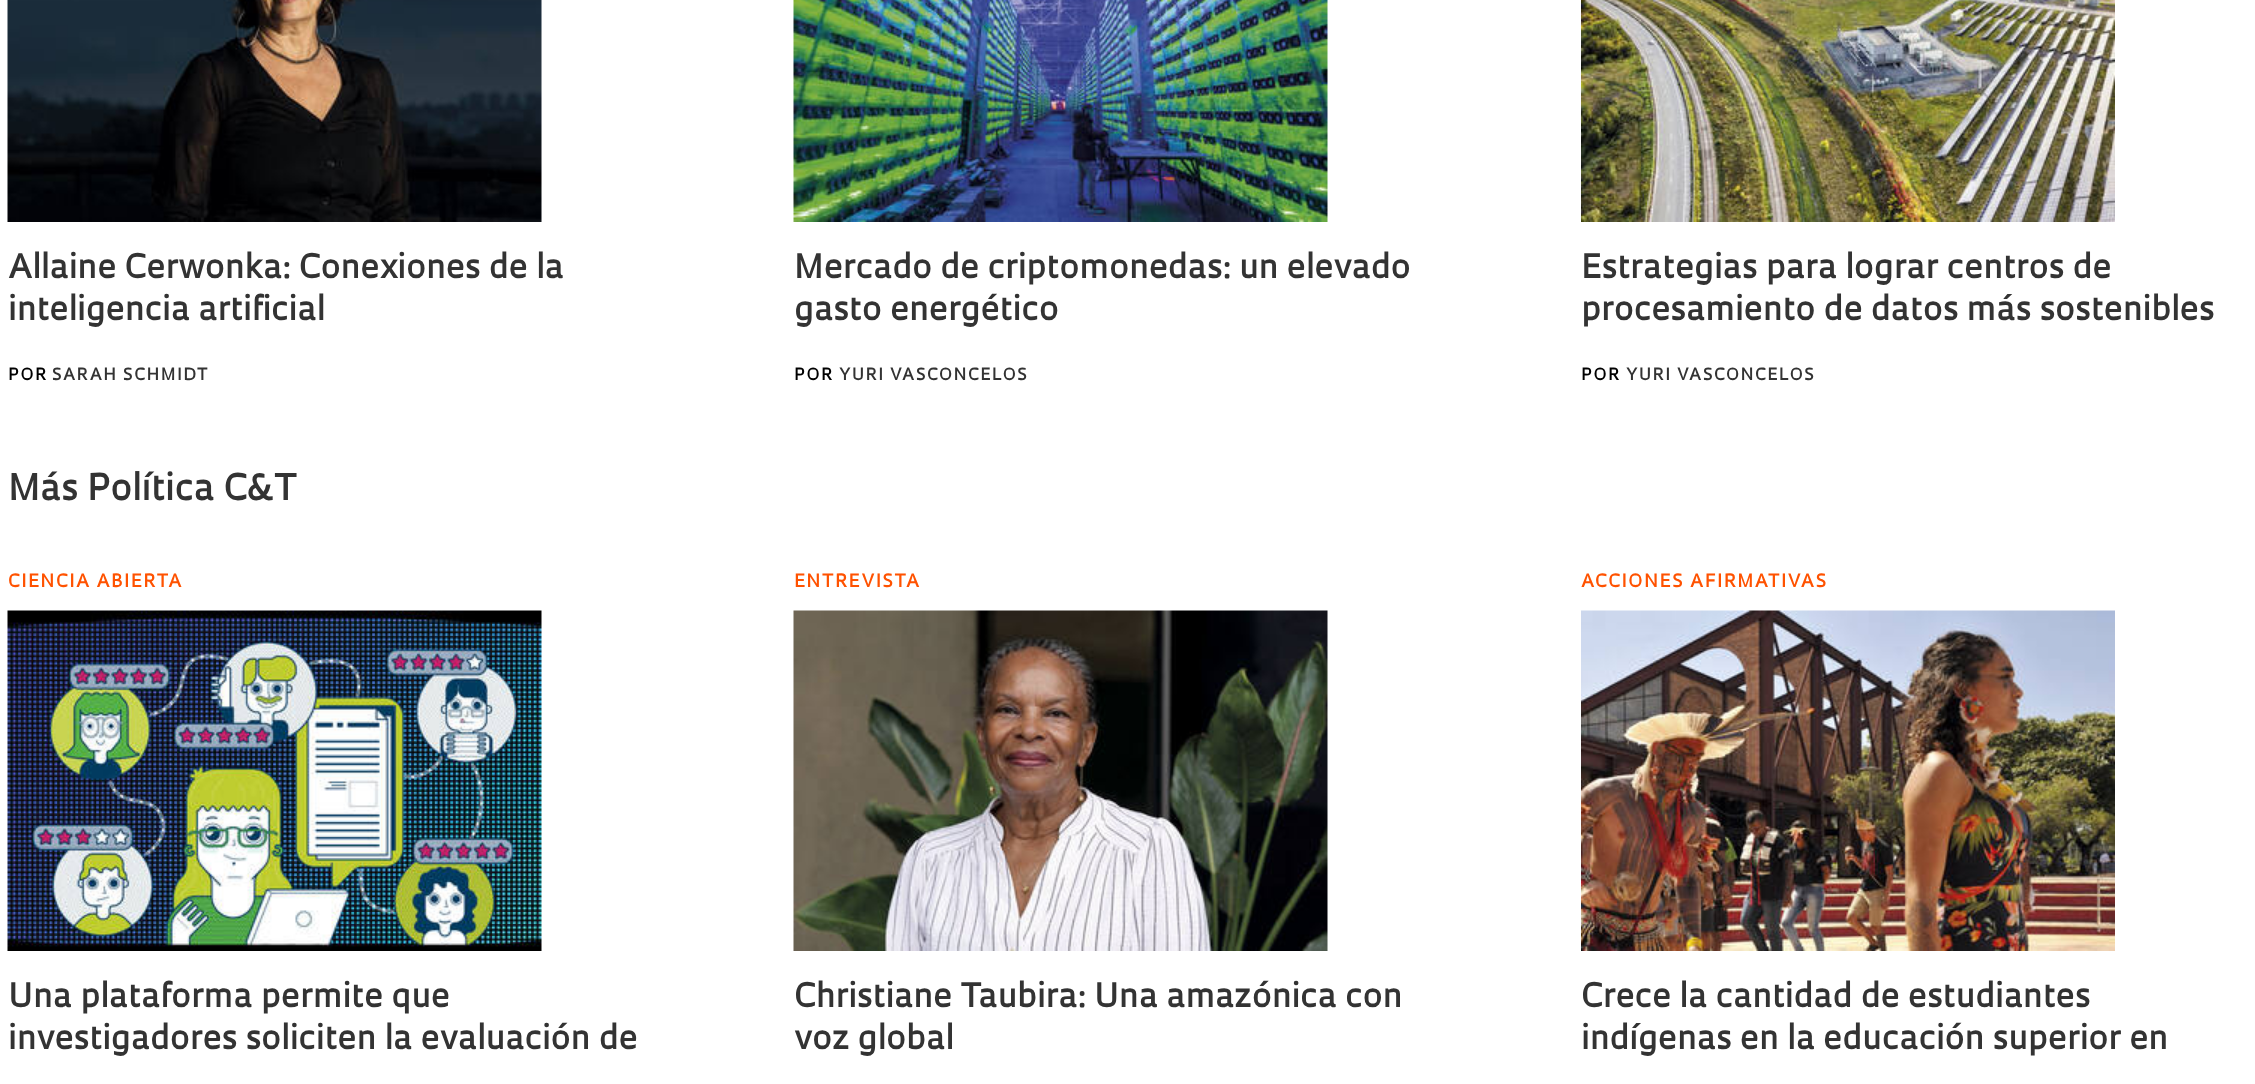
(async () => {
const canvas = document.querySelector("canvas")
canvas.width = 2255
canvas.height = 1084
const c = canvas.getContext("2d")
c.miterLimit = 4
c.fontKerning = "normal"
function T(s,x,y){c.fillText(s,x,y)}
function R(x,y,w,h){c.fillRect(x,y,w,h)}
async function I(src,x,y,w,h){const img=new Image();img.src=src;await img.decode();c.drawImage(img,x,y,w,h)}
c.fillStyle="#fff"
R(0,0,2255,1084)
await I("1.png",7,0,535,222)
c.font="600 33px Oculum"
c.fillStyle="#333"
T("Allaine Cerwonka: Conexiones de la",8,278)
T("inteligencia artificial",8,320)
c.letterSpacing="1.5px"
c.font="600 16.5px Oculum"
c.fillStyle="#000"
T("POR",8,380)
c.fillStyle="#333"
T("SARAH SCHMIDT",52,380)
await I("2.png",793,0,535,222)
c.letterSpacing="0px"
c.font="600 33px Oculum"
T("Mercado de criptomonedas: un elevado",794,278)
T("gasto energético",794,320)
c.letterSpacing="1.5px"
c.font="600 16.5px Oculum"
c.fillStyle="#000"
T("POR",794,380)
c.fillStyle="#333"
T("YURI VASCONCELOS",839,380)
await I("3.png",1581,0,534,222)
c.letterSpacing="0px"
c.font="600 33px Oculum"
T("Estrategias para lograr centros de",1581,278)
T("procesamiento de datos más sostenibles",1581,320)
c.letterSpacing="1.5px"
c.font="600 16.5px Oculum"
c.fillStyle="#000"
T("POR",1581,380)
c.fillStyle="#333"
T("YURI VASCONCELOS",1626,380)
c.letterSpacing="0px"
c.font="600 36px Oculum"
T("Más Política C&T",8,500)
c.letterSpacing="1.5px"
c.font="600 18px Oculum"
c.fillStyle="#ff5200"
T("CIENCIA ABIERTA",8,587)
await I("4.png",7,610,535,341)
c.letterSpacing="0px"
c.font="600 33px Oculum"
c.fillStyle="#333"
T("Una plataforma permite que",8,1007)
T("investigadores soliciten la evaluación de",8,1049)
c.letterSpacing="1.5px"
c.font="600 18px Oculum"
c.fillStyle="#ff5200"
T("ENTREVISTA",794,587)
await I("5.png",793,610,535,341)
c.letterSpacing="0px"
c.font="600 33px Oculum"
c.fillStyle="#333"
T("Christiane Taubira: Una amazónica con",794,1007)
T("voz global",794,1049)
c.letterSpacing="1.5px"
c.font="600 18px Oculum"
c.fillStyle="#ff5200"
T("ACCIONES AFIRMATIVAS",1581,587)
await I("6.png",1581,610,534,341)
c.letterSpacing="0px"
c.font="600 33px Oculum"
c.fillStyle="#333"
T("Crece la cantidad de estudiantes",1581,1007)
T("indígenas en la educación superior en",1581,1049)
})()
